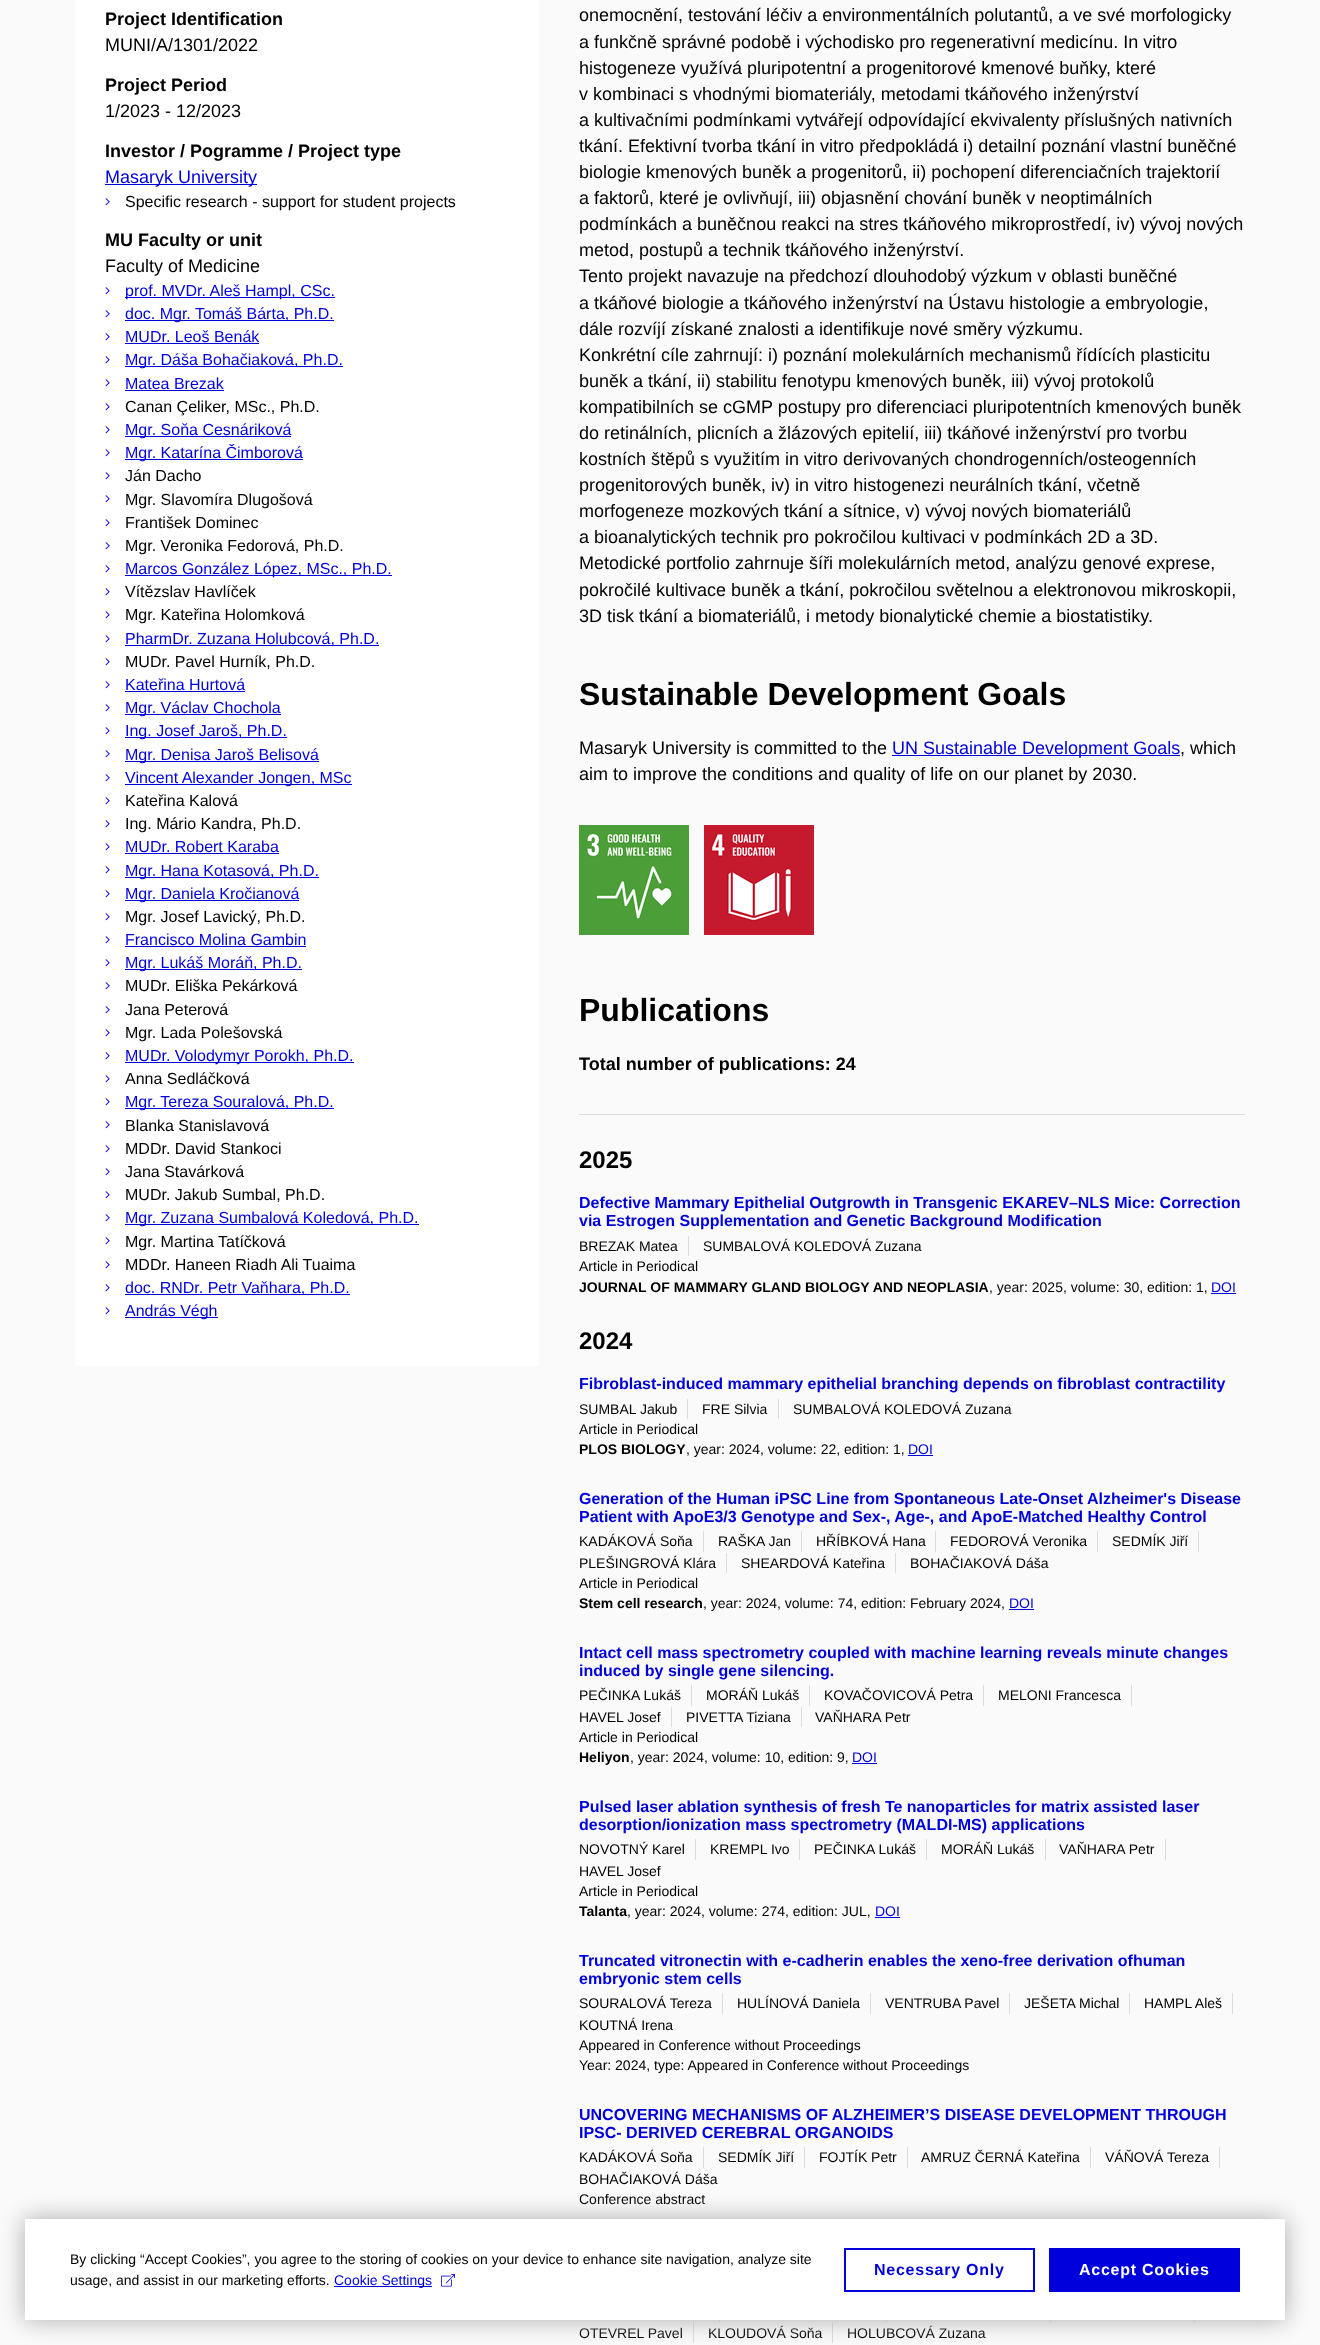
(async () => {
const canvas = document.querySelector("canvas")
canvas.width = 1320
canvas.height = 2345
const c = canvas.getContext("2d")
c.miterLimit = 4
c.fontKerning = "normal"
function T(s,x,y){c.fillText(s,x,y)}
function R(x,y,w,h){c.fillRect(x,y,w,h)}
async function I(src,x,y,w,h){const img=new Image();img.src=src;await img.decode();c.drawImage(img,x,y,w,h)}
c.fillStyle="#fafafa"
R(0,0,1320,2345)
c.fillStyle="#fff"
R(75,0,464,1366)
c.font="bold 18px Liberation Sans"
c.fillStyle="#000"
T("Project Identification",105,25)
c.font="18px Liberation Sans"
T("MUNI/A/1301/2022",105,51)
c.font="bold 18px Liberation Sans"
T("Project Period",105,91)
c.font="18px Liberation Sans"
T("1/2023 - 12/2023",105,117)
c.font="bold 18px Liberation Sans"
T("Investor / Pogramme / Project type",105,157)
c.fillStyle="#0000dc"
R(105,184,152,1)
c.font="18px Liberation Sans"
T("Masaryk University",105,183)
await I("1.png",105,198,5,8)
c.font="16px Liberation Sans"
c.fillStyle="#000"
T("Specific research - support for student projects",125,207)
c.font="bold 18px Liberation Sans"
T("MU Faculty or unit",105,246)
c.font="18px Liberation Sans"
T("Faculty of Medicine",105,272)
await I("1.png",105,287,5,8)
c.fillStyle="#0000dc"
R(125,297,210,1)
c.font="16px Liberation Sans"
T("prof. MVDr. Aleš Hampl, CSc.",125,296)
await I("1.png",105,310,5,8)
R(125,320,209,1)
T("doc. Mgr. Tomáš Bárta, Ph.D.",125,319)
await I("1.png",105,333,5,8)
T("MUDr. Leoš Benák",125,342)
R(125,343,134,1)
await I("1.png",105,356,5,8)
R(125,366,218,1)
T("Mgr. Dáša Bohačiaková, Ph.D.",125,365)
await I("1.png",105,379,5,8)
T("Matea Brezak",125,389)
R(125,390,99,1)
await I("1.png",105,403,5,8)
c.fillStyle="#000"
T("Canan Çeliker, MSc., Ph.D.",125,412)
await I("1.png",105,426,5,8)
c.fillStyle="#0000dc"
R(125,436,166,1)
T("Mgr. Soňa Cesnáriková",125,435)
await I("1.png",105,449,5,8)
R(125,459,178,1)
T("Mgr. Katarína Čimborová",125,458)
await I("1.png",105,472,5,8)
c.fillStyle="#000"
T("Ján Dacho",125,481)
await I("1.png",105,495,5,8)
T("Mgr. Slavomíra Dlugošová",125,505)
await I("1.png",105,519,5,8)
T("František Dominec",125,528)
await I("1.png",105,542,5,8)
T("Mgr. Veronika Fedorová, Ph.D.",125,551)
await I("1.png",105,565,5,8)
c.fillStyle="#0000dc"
R(125,575,267,1)
T("Marcos González López, MSc., Ph.D.",125,574)
await I("1.png",105,588,5,8)
c.fillStyle="#000"
T("Vítězslav Havlíček",125,597)
await I("1.png",105,611,5,8)
T("Mgr. Kateřina Holomková",125,620)
await I("1.png",105,635,5,8)
c.fillStyle="#0000dc"
R(125,645,254,1)
T("PharmDr. Zuzana Holubcová, Ph.D.",125,644)
await I("1.png",105,658,5,8)
c.fillStyle="#000"
T("MUDr. Pavel Hurník, Ph.D.",125,667)
await I("1.png",105,681,5,8)
c.fillStyle="#0000dc"
T("Kateřina Hurtová",125,690)
R(125,691,120,1)
await I("1.png",105,704,5,8)
R(125,714,156,1)
T("Mgr. Václav Chochola",125,713)
await I("1.png",105,727,5,8)
R(125,737,162,1)
T("Ing. Josef Jaroš, Ph.D.",125,736)
await I("1.png",105,750,5,8)
R(125,761,194,1)
T("Mgr. Denisa Jaroš Belisová",125,760)
await I("1.png",105,774,5,8)
R(125,784,227,1)
T("Vincent Alexander Jongen, MSc",125,783)
await I("1.png",105,797,5,8)
c.fillStyle="#000"
T("Kateřina Kalová",125,806)
await I("1.png",105,820,5,8)
T("Ing. Mário Kandra, Ph.D.",125,829)
await I("1.png",105,843,5,8)
c.fillStyle="#0000dc"
T("MUDr. Robert Karaba",125,852)
R(125,853,154,1)
await I("1.png",105,866,5,8)
R(125,877,194,1)
T("Mgr. Hana Kotasová, Ph.D.",125,876)
await I("1.png",105,890,5,8)
R(125,900,174,1)
T("Mgr. Daniela Kročianová",125,899)
await I("1.png",105,913,5,8)
c.fillStyle="#000"
T("Mgr. Josef Lavický, Ph.D.",125,922)
await I("1.png",105,936,5,8)
c.fillStyle="#0000dc"
T("Francisco Molina Gambin",125,945)
R(125,946,181,1)
await I("1.png",105,959,5,8)
R(125,969,177,1)
T("Mgr. Lukáš Moráň, Ph.D.",125,968)
await I("1.png",105,982,5,8)
c.fillStyle="#000"
T("MUDr. Eliška Pekárková",125,991)
await I("1.png",105,1006,5,8)
T("Jana Peterová",125,1015)
await I("1.png",105,1029,5,8)
T("Mgr. Lada Polešovská",125,1038)
await I("1.png",105,1052,5,8)
c.fillStyle="#0000dc"
R(125,1062,229,1)
T("MUDr. Volodymyr Porokh, Ph.D.",125,1061)
await I("1.png",105,1075,5,8)
c.fillStyle="#000"
T("Anna Sedláčková",125,1084)
await I("1.png",105,1098,5,8)
c.fillStyle="#0000dc"
R(125,1108,209,1)
T("Mgr. Tereza Souralová, Ph.D.",125,1107)
await I("1.png",105,1121,5,8)
c.fillStyle="#000"
T("Blanka Stanislavová",125,1131)
await I("1.png",105,1145,5,8)
T("MDDr. David Stankoci",125,1154)
await I("1.png",105,1168,5,8)
T("Jana Stavárková",125,1177)
await I("1.png",105,1191,5,8)
T("MUDr. Jakub Sumbal, Ph.D.",125,1200)
await I("1.png",105,1214,5,8)
c.fillStyle="#0000dc"
R(125,1224,294,1)
T("Mgr. Zuzana Sumbalová Koledová, Ph.D.",125,1223)
await I("1.png",105,1237,5,8)
c.fillStyle="#000"
T("Mgr. Martina Tatíčková",125,1247)
await I("1.png",105,1261,5,8)
T("MDDr. Haneen Riadh Ali Tuaima",125,1270)
await I("1.png",105,1284,5,8)
c.fillStyle="#0000dc"
R(125,1294,225,1)
T("doc. RNDr. Petr Vaňhara, Ph.D.",125,1293)
await I("1.png",105,1307,5,8)
R(125,1317,93,1)
T("András Végh",125,1316)
c.font="18px Liberation Sans"
c.fillStyle="#000"
T("onemocnění, testování léčiv a environmentálních polutantů, a ve své morfologicky",579,21)
T("a funkčně správné podobě i východisko pro regenerativní medicínu. In vitro",579,48)
T("histogeneze využívá pluripotentní a progenitorové kmenové buňky, které",579,74)
T("v kombinaci s vhodnými biomateriály, metodami tkáňového inženýrství",579,100)
T("a kultivačními podmínkami vytvářejí odpovídající ekvivalenty příslušných nativních",579,126)
T("tkání. Efektivní tvorba tkání in vitro předpokládá i) detailní poznání vlastní buněčné",579,152)
T("biologie kmenových buněk a progenitorů, ii) pochopení diferenciačních trajektorií",579,178)
T("a faktorů, které je ovlivňují, iii) objasnění chování buněk v neoptimálních",579,204)
T("podmínkách a buněčnou reakci na stres tkáňového mikroprostředí, iv) vývoj nových",579,230)
T("metod, postupů a technik tkáňového inženýrství.",579,256)
T("Tento projekt navazuje na předchozí dlouhodobý výzkum v oblasti buněčné",579,282)
T("a tkáňové biologie a tkáňového inženýrství na Ústavu histologie a embryologie,",579,309)
T("dále rozvíjí získané znalosti a identifikuje nové směry výzkumu.",579,335)
T("Konkrétní cíle zahrnují: i) poznání molekulárních mechanismů řídících plasticitu",579,361)
T("buněk a tkání, ii) stabilitu fenotypu kmenových buněk, iii) vývoj protokolů",579,387)
T("kompatibilních se cGMP postupy pro diferenciaci pluripotentních kmenových buněk",579,413)
T("do retinálních, plicních a žlázových epitelií, iii) tkáňové inženýrství pro tvorbu",579,439)
T("kostních štěpů s využitím in vitro derivovaných chondrogenních/osteogenních",579,465)
T("progenitorových buněk, iv) in vitro histogenezi neurálních tkání, včetně",579,491)
T("morfogeneze mozkových tkání a sítnice, v) vývoj nových biomateriálů",579,517)
T("a bioanalytických technik pro pokročilou kultivaci v podmínkách 2D a 3D.",579,543)
T("Metodické portfolio zahrnuje šíři molekulárních metod, analýzu genové exprese,",579,569)
T("pokročilé kultivace buněk a tkání, pokročilou světelnou a elektronovou mikroskopii,",579,596)
T("3D tisk tkání a biomateriálů, i metody bionalytické chemie a biostatistiky.",579,622)
c.font="bold 32px Liberation Sans"
T("Sustainable Development Goals",579,705)
c.font="18px Liberation Sans"
T("Masaryk University is committed to the",579,754)
c.fillStyle="#0000dc"
R(892,755,288,1)
T("UN Sustainable Development Goals",892,754)
c.fillStyle="#000"
T(", which",1180,754)
T("aim to improve the conditions and quality of life on our planet by 2030.",579,780)
await I("2.png",579,825,110,110)
await I("3.png",704,825,110,110)
c.font="bold 32px Liberation Sans"
T("Publications",579,1021)
c.font="bold 18px Liberation Sans"
T("Total number of publications: 24",579,1070)
c.fillStyle="#dcdcdc"
R(579,1114,666,1)
c.font="bold 24px Liberation Sans"
c.fillStyle="#000"
T("2025",579,1168)
c.font="bold 16px Liberation Sans"
c.fillStyle="#0000dc"
T("Defective Mammary Epithelial Outgrowth in Transgenic EKAREV–NLS Mice: Correction",579,1208)
T("via Estrogen Supplementation and Genetic Background Modification",579,1226)
c.fillStyle="#dcdcdc"
R(688,1236,1,20)
c.font="14px Liberation Sans"
c.fillStyle="#000"
T("BREZAK Matea",579,1251)
T("SUMBALOVÁ KOLEDOVÁ Zuzana",703,1251)
T("Article in Periodical",579,1271)
c.font="bold 14px Liberation Sans"
T("JOURNAL OF MAMMARY GLAND BIOLOGY AND NEOPLASIA",579,1292)
c.font="14px Liberation Sans"
T(", year: 2025, volume: 30, edition: 1,",989,1292)
c.fillStyle="#0000dc"
T("DOI",1211,1292)
R(1211,1293,25,1)
c.font="bold 24px Liberation Sans"
c.fillStyle="#000"
T("2024",579,1349)
c.font="bold 16px Liberation Sans"
c.fillStyle="#0000dc"
T("Fibroblast-induced mammary epithelial branching depends on fibroblast contractility",579,1389)
c.fillStyle="#dcdcdc"
R(687,1399,1,20)
c.font="14px Liberation Sans"
c.fillStyle="#000"
T("SUMBAL Jakub",579,1414)
c.fillStyle="#dcdcdc"
R(778,1399,1,20)
c.fillStyle="#000"
T("FRE Silvia",702,1414)
T("SUMBALOVÁ KOLEDOVÁ Zuzana",793,1414)
T("Article in Periodical",579,1434)
c.font="bold 14px Liberation Sans"
T("PLOS BIOLOGY",579,1454)
c.font="14px Liberation Sans"
T(", year: 2024, volume: 22, edition: 1,",686,1454)
c.fillStyle="#0000dc"
T("DOI",908,1454)
R(908,1455,25,1)
c.font="bold 16px Liberation Sans"
T("Generation of the Human iPSC Line from Spontaneous Late-Onset Alzheimer's Disease",579,1504)
T("Patient with ApoE3/3 Genotype and Sex-, Age-, and ApoE-Matched Healthy Control",579,1522)
c.fillStyle="#dcdcdc"
R(703,1531,1,21)
c.font="14px Liberation Sans"
c.fillStyle="#000"
T("KADÁKOVÁ Soňa",579,1546)
c.fillStyle="#dcdcdc"
R(801,1531,1,21)
c.fillStyle="#000"
T("RAŠKA Jan",718,1546)
c.fillStyle="#dcdcdc"
R(935,1531,1,21)
c.fillStyle="#000"
T("HŘÍBKOVÁ Hana",816,1546)
c.fillStyle="#dcdcdc"
R(1097,1531,1,21)
c.fillStyle="#000"
T("FEDOROVÁ Veronika",950,1546)
c.fillStyle="#dcdcdc"
R(1198,1531,1,21)
c.fillStyle="#000"
T("SEDMÍK Jiří",1112,1546)
c.fillStyle="#dcdcdc"
R(726,1553,1,20)
c.fillStyle="#000"
T("PLEŠINGROVÁ Klára",579,1568)
c.fillStyle="#dcdcdc"
R(895,1553,1,20)
c.fillStyle="#000"
T("SHEARDOVÁ Kateřina",741,1568)
T("BOHAČIAKOVÁ Dáša",910,1568)
T("Article in Periodical",579,1588)
c.font="bold 14px Liberation Sans"
T("Stem cell research",579,1608)
c.font="14px Liberation Sans"
T(", year: 2024, volume: 74, edition: February 2024,",703,1608)
c.fillStyle="#0000dc"
T("DOI",1009,1608)
R(1009,1609,25,1)
c.font="bold 16px Liberation Sans"
T("Intact cell mass spectrometry coupled with machine learning reveals minute changes",579,1658)
T("induced by single gene silencing.",579,1676)
c.fillStyle="#dcdcdc"
R(691,1685,1,21)
c.font="14px Liberation Sans"
c.fillStyle="#000"
T("PEČINKA Lukáš",579,1700)
c.fillStyle="#dcdcdc"
R(809,1685,1,21)
c.fillStyle="#000"
T("MORÁŇ Lukáš",706,1700)
c.fillStyle="#dcdcdc"
R(983,1685,1,21)
c.fillStyle="#000"
T("KOVAČOVICOVÁ Petra",824,1700)
c.fillStyle="#dcdcdc"
R(1131,1685,1,21)
c.fillStyle="#000"
T("MELONI Francesca",998,1700)
c.fillStyle="#dcdcdc"
R(671,1707,1,20)
c.fillStyle="#000"
T("HAVEL Josef",579,1722)
c.fillStyle="#dcdcdc"
R(801,1707,1,20)
c.fillStyle="#000"
T("PIVETTA Tiziana",686,1722)
T("VAŇHARA Petr",815,1722)
T("Article in Periodical",579,1742)
c.font="bold 14px Liberation Sans"
T("Heliyon",579,1762)
c.font="14px Liberation Sans"
T(", year: 2024, volume: 10, edition: 9,",630,1762)
c.fillStyle="#0000dc"
T("DOI",852,1762)
R(852,1763,25,1)
c.font="bold 16px Liberation Sans"
T("Pulsed laser ablation synthesis of fresh Te nanoparticles for matrix assisted laser",579,1812)
T("desorption/ionization mass spectrometry (MALDI-MS) applications",579,1830)
c.fillStyle="#dcdcdc"
R(695,1839,1,21)
c.font="14px Liberation Sans"
c.fillStyle="#000"
T("NOVOTNÝ Karel",579,1854)
c.fillStyle="#dcdcdc"
R(799,1839,1,21)
c.fillStyle="#000"
T("KREMPL Ivo",710,1854)
c.fillStyle="#dcdcdc"
R(926,1839,1,21)
c.fillStyle="#000"
T("PEČINKA Lukáš",814,1854)
c.fillStyle="#dcdcdc"
R(1045,1839,1,21)
c.fillStyle="#000"
T("MORÁŇ Lukáš",941,1854)
c.fillStyle="#dcdcdc"
R(1165,1839,1,21)
c.fillStyle="#000"
T("VAŇHARA Petr",1059,1854)
T("HAVEL Josef",579,1876)
T("Article in Periodical",579,1896)
c.font="bold 14px Liberation Sans"
T("Talanta",579,1916)
c.font="14px Liberation Sans"
T(", year: 2024, volume: 274, edition: JUL,",627,1916)
c.fillStyle="#0000dc"
T("DOI",875,1916)
R(875,1917,25,1)
c.font="bold 16px Liberation Sans"
T("Truncated vitronectin with e-cadherin enables the xeno-free derivation ofhuman",579,1966)
T("embryonic stem cells",579,1984)
c.fillStyle="#dcdcdc"
R(722,1993,1,21)
c.font="14px Liberation Sans"
c.fillStyle="#000"
T("SOURALOVÁ Tereza",579,2008)
c.fillStyle="#dcdcdc"
R(870,1993,1,21)
c.fillStyle="#000"
T("HULÍNOVÁ Daniela",737,2008)
c.fillStyle="#dcdcdc"
R(1009,1993,1,21)
c.fillStyle="#000"
T("VENTRUBA Pavel",885,2008)
c.fillStyle="#dcdcdc"
R(1129,1993,1,21)
c.fillStyle="#000"
T("JEŠETA Michal",1024,2008)
c.fillStyle="#dcdcdc"
R(1232,1993,1,21)
c.fillStyle="#000"
T("HAMPL Aleš",1144,2008)
T("KOUTNÁ Irena",579,2030)
T("Appeared in Conference without Proceedings",579,2050)
T("Year: 2024, type: Appeared in Conference without Proceedings",579,2070)
c.font="bold 16px Liberation Sans"
c.fillStyle="#0000dc"
T("UNCOVERING MECHANISMS OF ALZHEIMER’S DISEASE DEVELOPMENT THROUGH",579,2120)
T("IPSC- DERIVED CEREBRAL ORGANOIDS",579,2138)
c.fillStyle="#dcdcdc"
R(703,2147,1,21)
c.font="14px Liberation Sans"
c.fillStyle="#000"
T("KADÁKOVÁ Soňa",579,2162)
c.fillStyle="#dcdcdc"
R(804,2147,1,21)
c.fillStyle="#000"
T("SEDMÍK Jiří",718,2162)
c.fillStyle="#dcdcdc"
R(907,2147,1,21)
c.fillStyle="#000"
T("FOJTÍK Petr",819,2162)
c.fillStyle="#dcdcdc"
R(1090,2147,1,21)
c.fillStyle="#000"
T("AMRUZ ČERNÁ Kateřina",921,2162)
c.fillStyle="#dcdcdc"
R(1219,2147,1,21)
c.fillStyle="#000"
T("VÁŇOVÁ Tereza",1105,2162)
T("BOHAČIAKOVÁ Dáša",579,2184)
T("Conference abstract",579,2204)
c.fillStyle="#dcdcdc"
R(719,2320,1,2)
R(886,2320,1,2)
R(1050,2320,1,2)
R(1194,2320,1,2)
R(693,2323,1,20)
c.fillStyle="#000"
T("OTEVREL Pavel",579,2338)
c.fillStyle="#dcdcdc"
R(832,2323,1,20)
c.fillStyle="#000"
T("KLOUDOVÁ Soňa",708,2338)
T("HOLUBCOVÁ Zuzana",847,2338)
c.fillStyle="#aaa"
c.filter="blur(12.5px)"
c.beginPath()
c.rect(25,2219,1260,101)
c.fill()
c.filter="none"
c.fillStyle="#fff"
R(25,2219,1260,101)
c.fillStyle="#000"
T("By clicking “Accept Cookies”, you agree to the storing of cookies on your device to enhance site navigation, analyze site",70,2264)
T("usage, and assist in our marketing efforts.",70,2285)
c.fillStyle="#0000dc"
R(334,2286,98,1)
T("Cookie Settings",334,2285)
await I("4.png",441,2274,14,13)
c.strokeStyle="#0000dc"
c.lineWidth=2
c.strokeRect(845,2249,189,42)
c.letterSpacing="0.75px"
c.font="bold 16px Liberation Sans"
T("Necessary Only",874,2275)
R(1049,2248,191,44)
c.fillStyle="#fff"
T("Accept Cookies",1079,2275)
})()
